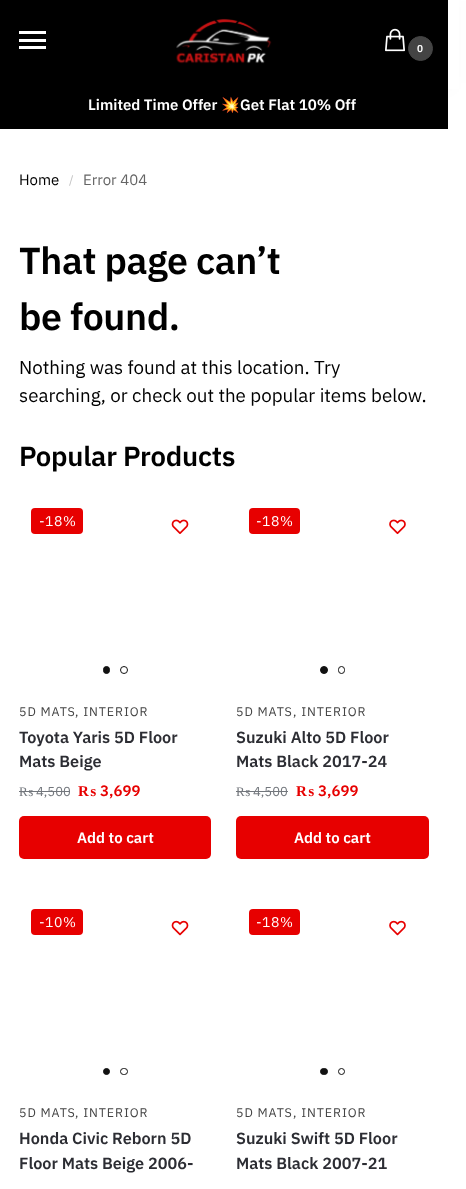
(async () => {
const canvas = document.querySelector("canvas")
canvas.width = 466
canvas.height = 1189
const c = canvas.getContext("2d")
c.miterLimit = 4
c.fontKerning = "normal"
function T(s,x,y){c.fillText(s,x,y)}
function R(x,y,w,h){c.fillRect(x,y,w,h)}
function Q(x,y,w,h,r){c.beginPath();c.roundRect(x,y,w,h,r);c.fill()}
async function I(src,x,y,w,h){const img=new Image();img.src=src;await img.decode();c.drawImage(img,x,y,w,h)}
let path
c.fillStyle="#fff"
R(0,0,466,1189)
c.fillStyle="#000"
R(0,81,448,48)
c.fillStyle="#00000014"
c.filter="blur(9.5px)"
c.beginPath()
c.rect(0,1,448,82)
c.fill()
c.filter="none"
c.fillStyle="#000"
R(0,0,448,81)
c.fillStyle="#fff"
R(19,31,27,3)
R(19,39,27,3)
R(19,46,27,3)
await I("1.png",176,18,96,46)
await I("2.png",385,28,20,24)
c.fillStyle="#444"
c.beginPath()
c.arc(420.5,48.5,12,0,7)
c.fill()
c.strokeStyle="#444"
c.stroke()
c.font="600 10px IBM Plex Sans"
c.fillStyle="#fff"
T("0",417,52)
R(448,0,11,89)
c.font="600 15px IBM Plex Sans"
T("Limited Time Offer",88,110)
c.font="bold 15px Noto Color Emoji"
T("💥",221,110)
c.font="600 15px IBM Plex Sans"
T("Get Flat 10% Off",240,110)
c.font="15px IBM Plex Sans"
c.fillStyle="#000"
T("Home",19,185)
c.font="12px IBM Plex Sans"
c.fillStyle="#c2c2c2"
T("/",69,184)
c.font="15px IBM Plex Sans"
c.fillStyle="#666"
T("Error 404",83,185)
c.letterSpacing="-0.4px"
c.font="600 37.5px IBM Plex Sans"
c.fillStyle="#000"
T("That page can’t",19,274)
T("be found.",19,330)
c.letterSpacing="0px"
c.font="18.75px IBM Plex Sans"
T("Nothing was found at this location. Try",19,374)
T("searching, or check out the popular items below.",19,402)
c.letterSpacing="-0.25px"
c.font="600 27.5px IBM Plex Sans"
T("Popular Products",19,466)
c.fillStyle="#e70000"
Q(31,508,52,26,4)
c.letterSpacing="0.5px"
c.font="14px IBM Plex Sans"
c.fillStyle="#fff"
T("-18%",39,526)
c.fillStyle="#111"
c.beginPath()
c.roundRect(103.5,666.5,6,7,3)
c.fill()
c.strokeStyle="#111"
c.stroke()
c.beginPath()
c.arc(124,670,3.5,0,7)
c.stroke()
await I("3.png",171,519,18,15)
c.letterSpacing="0.9px"
c.font="12.5px IBM Plex Sans"
c.fillStyle="#444"
T("5D MATS",19,716)
T(", INTERIOR",75,716)
c.letterSpacing="0px"
c.font="600 16.25px IBM Plex Sans"
c.fillStyle="#2c2d33"
T("Toyota Yaris 5D Floor",19,743)
T("Mats Beige",19,767)
c.font="13px Liberation Serif"
c.fillStyle="#72767c"
T("₨",19,796)
R(19,791,14,1)
c.font="13px IBM Plex Sans"
T("4,500",36,796)
R(33,791,37,1)
c.font="bold 15px Liberation Serif"
c.fillStyle="#e70000"
T("₨",78,796)
c.font="600 15px IBM Plex Sans"
T("3,699",100,796)
Q(19,816,192,43,5)
c.fillStyle="#fff"
T("Add to cart",77,843)
path = new Path2D("M107.5 845c-4-4-4-11 0-15")
c.strokeStyle="#e70000"
c.lineWidth=1.2
c.stroke(path)
c.fillStyle="#e70000"
Q(249,508,51,26,4)
c.letterSpacing="0.5px"
c.font="14px IBM Plex Sans"
c.fillStyle="#fff"
T("-18%",256,526)
c.fillStyle="#111"
c.beginPath()
c.arc(324,670,3.5,0,7)
c.fill()
c.strokeStyle="#111"
c.lineWidth=1
c.stroke()
c.beginPath()
c.roundRect(338.5,666.5,6,7,3)
c.stroke()
await I("4.png",389,519,17,16)
c.letterSpacing="0.9px"
c.font="12.5px IBM Plex Sans"
c.fillStyle="#444"
T("5D MATS",236,716)
T(", INTERIOR",293,716)
c.letterSpacing="0px"
c.font="600 16.25px IBM Plex Sans"
c.fillStyle="#2c2d33"
T("Suzuki Alto 5D Floor",236,743)
T("Mats Black 2017-24",236,767)
c.font="13px Liberation Serif"
c.fillStyle="#72767c"
T("₨",236,796)
R(236,791,14,1)
c.font="13px IBM Plex Sans"
T("4,500",253,796)
R(250,791,38,1)
c.font="bold 15px Liberation Serif"
c.fillStyle="#e70000"
T("₨",296,796)
c.font="600 15px IBM Plex Sans"
T("3,699",318,796)
Q(236,816,193,43,5)
c.fillStyle="#fff"
T("Add to cart",294,843)
path = new Path2D("M325 830c2-2 4.5-3 7.5-3c12.5 0 14.5 18.5 2 21c-3.5 .5-7-.5-9.5-3")
c.strokeStyle="#e70000"
c.lineWidth=1.2
c.stroke(path)
c.fillStyle="#e70000"
Q(31,909,52,26,4)
c.letterSpacing="0.5px"
c.font="14px IBM Plex Sans"
c.fillStyle="#fff"
T("-10%",39,927)
c.fillStyle="#111"
c.beginPath()
c.arc(106.5,1071.5,3,0,7)
c.fill()
c.strokeStyle="#111"
c.lineWidth=1
c.stroke()
c.beginPath()
c.roundRect(120.5,1068.5,7,6,3)
c.stroke()
await I("5.png",171,920,18,16)
c.letterSpacing="0.9px"
c.font="12.5px IBM Plex Sans"
c.fillStyle="#444"
T("5D MATS",19,1117)
T(", INTERIOR",75,1117)
c.letterSpacing="0px"
c.font="600 16.25px IBM Plex Sans"
c.fillStyle="#2c2d33"
T("Honda Civic Reborn 5D",19,1144)
T("Floor Mats Beige 2006-",19,1169)
c.fillStyle="#e70000"
Q(249,909,51,26,4)
c.letterSpacing="0.5px"
c.font="14px IBM Plex Sans"
c.fillStyle="#fff"
T("-18%",256,927)
c.fillStyle="#111"
c.beginPath()
c.roundRect(320.5,1068.5,7,6,3)
c.fill()
c.stroke()
c.beginPath()
c.arc(341.5,1071.5,3,0,7)
c.stroke()
await I("6.png",389,920,17,16)
c.letterSpacing="0.9px"
c.font="12.5px IBM Plex Sans"
c.fillStyle="#444"
T("5D MATS",236,1117)
T(", INTERIOR",293,1117)
c.letterSpacing="0px"
c.font="600 16.25px IBM Plex Sans"
c.fillStyle="#2c2d33"
T("Suzuki Swift 5D Floor",236,1144)
T("Mats Black 2007-21",236,1169)
})()
